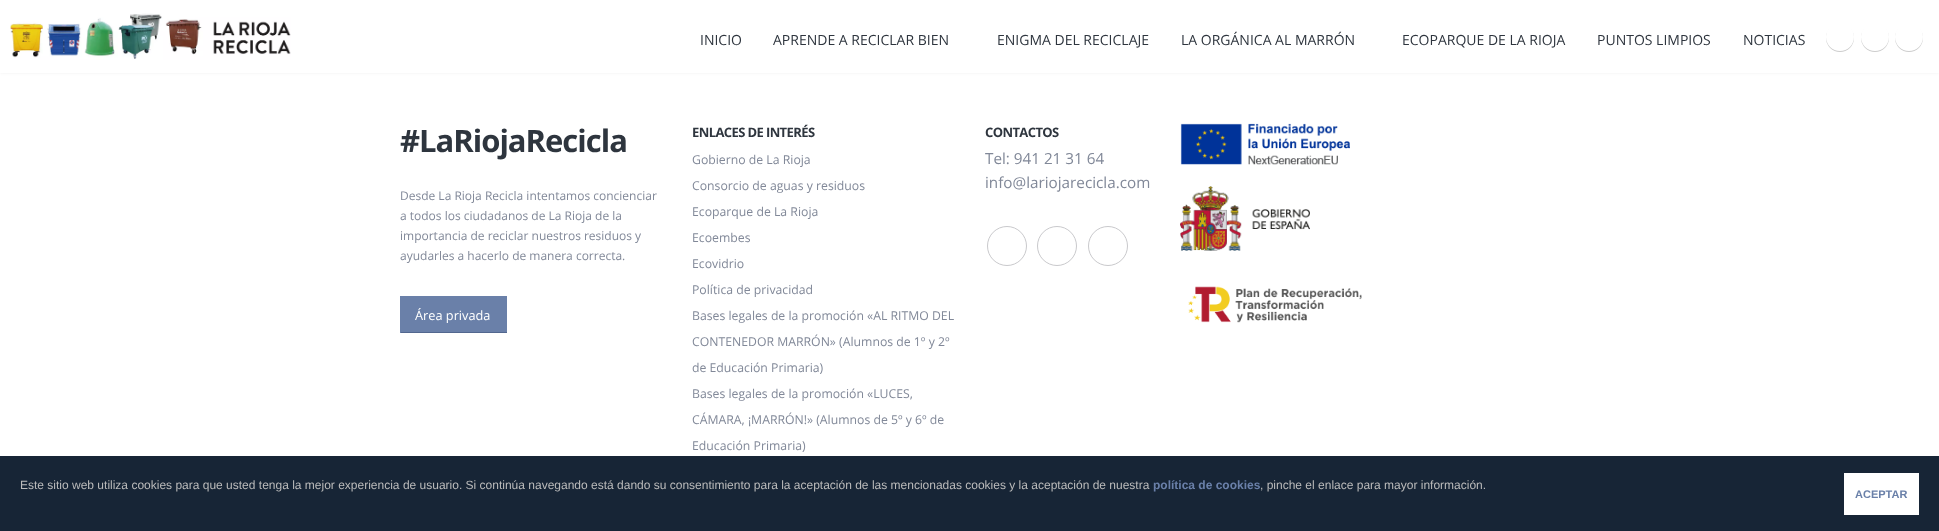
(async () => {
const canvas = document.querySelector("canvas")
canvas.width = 1939
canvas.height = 531
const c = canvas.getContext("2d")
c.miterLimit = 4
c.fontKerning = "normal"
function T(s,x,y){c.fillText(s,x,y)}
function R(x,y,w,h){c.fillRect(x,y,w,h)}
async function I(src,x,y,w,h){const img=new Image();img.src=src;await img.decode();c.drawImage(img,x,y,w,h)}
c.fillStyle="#fff"
R(0,0,1939,531)
c.fillStyle="#0000000f"
c.filter="blur(1.5px)"
c.beginPath()
c.rect(0,0,1939,73)
c.fill()
c.filter="none"
c.fillStyle="#fff"
R(0,0,1939,73)
await I("1.png",10,13,281,47)
c.font="14px Open Sans"
c.fillStyle="#2e353e"
T("INICIO",700,45)
T("APRENDE A RECICLAR BIEN",773,45)
T("ENIGMA DEL RECICLAJE",997,45)
T("LA ORGÁNICA AL MARRÓN",1181,45)
T("ECOPARQUE DE LA RIOJA",1402,45)
T("PUNTOS LIMPIOS",1597,45)
T("NOTICIAS",1743,45)
c.fillStyle="#00000033"
c.filter="blur(0.5px)"
c.beginPath()
c.roundRect(1826,24,28,28,14)
c.fill()
c.filter="none"
c.fillStyle="#fff"
c.beginPath()
c.arc(1840,37,14,0,7)
c.fill()
c.fillStyle="#00000033"
c.filter="blur(0.5px)"
c.beginPath()
c.roundRect(1861,24,28,28,14)
c.fill()
c.filter="none"
c.fillStyle="#fff"
c.beginPath()
c.arc(1875,37,14,0,7)
c.fill()
c.fillStyle="#00000033"
c.filter="blur(0.5px)"
c.beginPath()
c.roundRect(1895,24,28,28,14)
c.fill()
c.filter="none"
c.fillStyle="#fff"
c.beginPath()
c.arc(1909,37,14,0,7)
c.fill()
c.letterSpacing="-1px"
c.font="bold 31px Open Sans"
c.fillStyle="#2e353e"
T("#LaRiojaRecicla",400,152)
c.letterSpacing="0px"
c.font="12px Open Sans"
c.fillStyle="#818898"
T("Desde La Rioja Recicla intentamos concienciar",400,200)
T("a todos los ciudadanos de La Rioja de la",400,220)
T("importancia de reciclar nuestros residuos y",400,240)
T("ayudarles a hacerlo de manera correcta.",400,260)
c.fillStyle="#6a80a9"
R(401,296,106,36)
c.fillStyle="#52678f"
R(400,332,107,1)
c.fillStyle="#6a80a9"
R(400,296,1,37)
c.font="12.75px Open Sans"
c.fillStyle="#fff"
T("Área privada",415,320)
c.letterSpacing="-0.6px"
c.font="bold 13px Open Sans"
c.fillStyle="#2e353e"
T("ENLACES DE INTERÉS",692,137)
c.letterSpacing="0px"
c.font="12.25px Open Sans"
c.fillStyle="#818898"
T("Gobierno de La Rioja",692,164)
T("Consorcio de aguas y residuos",692,190)
T("Ecoparque de La Rioja",692,216)
T("Ecoembes",692,242)
T("Ecovidrio",692,268)
T("Política de privacidad",692,294)
T("Bases legales de la promoción «AL RITMO DEL",692,320)
T("CONTENEDOR MARRÓN» (Alumnos de 1º y 2º",692,346)
T("de Educación Primaria)",692,372)
T("Bases legales de la promoción «LUCES,",692,398)
T("CÁMARA, ¡MARRÓN!» (Alumnos de 5º y 6º de",692,424)
T("Educación Primaria)",692,450)
c.letterSpacing="-0.6px"
c.font="bold 13px Open Sans"
c.fillStyle="#2e353e"
T("CONTACTOS",985,137)
c.letterSpacing="0px"
c.font="15.25px Open Sans"
c.fillStyle="#818898"
T("Tel: 941 21 31 64",985,164)
T("info@lariojarecicla.com",985,188)
c.beginPath()
c.arc(1007,246,19.5,0,7)
c.strokeStyle="#c9c9cc"
c.stroke()
c.beginPath()
c.arc(1057,246,19.5,0,7)
c.stroke()
c.beginPath()
c.arc(1108,246,19.5,0,7)
c.stroke()
await I("2.png",1180,123,170,42)
await I("3.png",1180,186,130,65)
await I("4.png",1188,286,174,37)
c.fillStyle="#172536"
R(0,456,1939,75)
c.font="12px Liberation Sans"
c.fillStyle="#bbb"
T("Este sitio web utiliza cookies para que usted tenga la mejor experiencia de usuario. Si continúa navegando está dando su consentimiento para la aceptación de las mencionadas cookies y la aceptación de nuestra",20,489)
c.font="bold 12px Liberation Sans"
c.fillStyle="#6a80a9"
T("política de cookies",1153,489)
c.font="12px Liberation Sans"
c.fillStyle="#bbb"
T(", pinche el enlace para mayor información.",1260,489)
c.fillStyle="#fff"
R(1844,473,75,42)
c.font="bold 11px Liberation Sans"
c.fillStyle="#6a80a9"
T("ACEPTAR",1855,498)
})()
